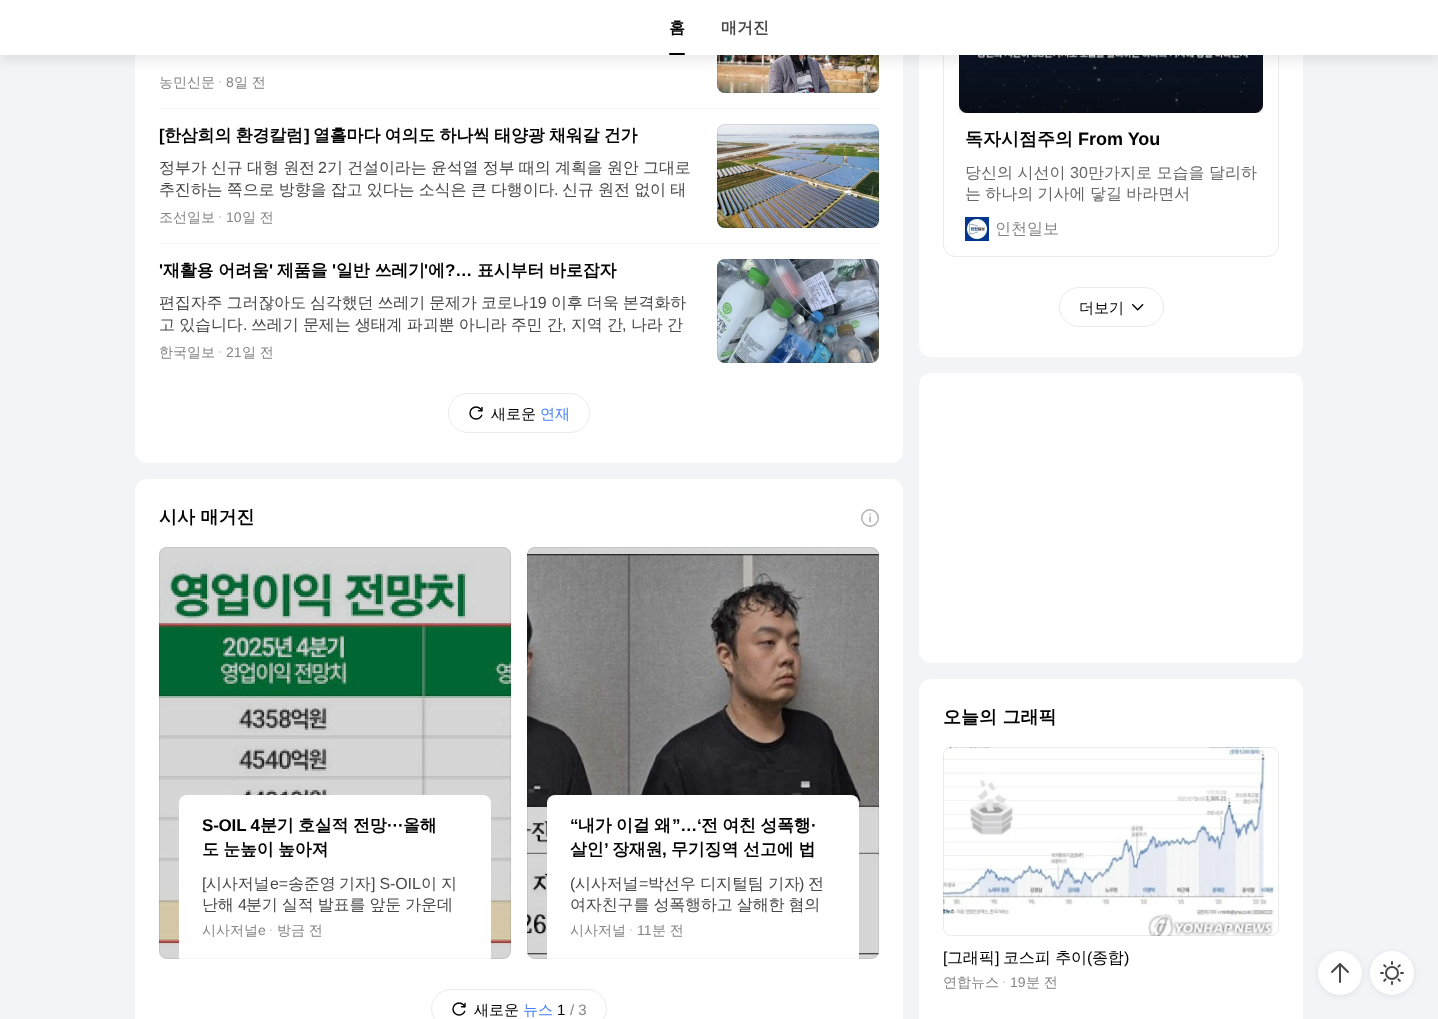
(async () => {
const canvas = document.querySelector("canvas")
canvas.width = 1438
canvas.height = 1019
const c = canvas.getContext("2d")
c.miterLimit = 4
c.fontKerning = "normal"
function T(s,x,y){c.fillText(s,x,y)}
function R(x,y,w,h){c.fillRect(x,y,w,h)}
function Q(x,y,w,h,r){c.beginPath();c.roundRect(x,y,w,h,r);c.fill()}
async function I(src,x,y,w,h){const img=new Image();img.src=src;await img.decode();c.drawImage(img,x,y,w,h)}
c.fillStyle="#f2f4f7"
R(0,0,1438,1019)
c.fillStyle="#fff"
Q(135,-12,768,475,12)
c.fillStyle="#f2f4f7"
Q(717,-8,162,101,8)
await I("1.png",717,55,162,38)
c.beginPath()
c.roundRect(717.5,-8.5,161,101,7.5)
c.strokeStyle="#00000014"
c.stroke()
c.fillStyle="#fff"
Q(919,-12,384,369,12)
c.beginPath()
c.roundRect(943.5,-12.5,335,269,11.5)
c.strokeStyle="#ebebeb"
c.stroke()
c.fillStyle="#f2f4f7"
Q(959,-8,304,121,8)
await I("8.png",959,55,304,58)
c.strokeStyle="#0000000f"
c.strokeRect(959.5,-.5,303,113)
c.fillStyle="#00000014"
c.filter="blur(6px)"
c.beginPath()
c.rect(0,6,1438,55)
c.fill()
c.filter="none"
c.fillStyle="#fff"
R(0,0,1438,55)
c.font="bold 16px WenQuanYi Zen Hei"
c.fillStyle="#000"
T("홈",669,33)
Q(669,53,16,2,1)
c.fillStyle="#474747"
T("매거진",721,33)
c.font="500 14px WenQuanYi Zen Hei"
c.fillStyle="#858585"
T("농민신문",159,87)
c.fillStyle="#d6d6d6"
c.beginPath()
c.arc(220,82,1,0,7)
c.fill()
c.font="14px Liberation Sans"
c.fillStyle="#858585"
T("8",226,87)
c.wordSpacing="-0.5px"
c.font="500 14px WenQuanYi Zen Hei"
T("일 전",234,87)
c.fillStyle="#f5f5f5"
R(159,108,720,1)
c.letterSpacing="-0.2px"
c.wordSpacing="0px"
c.font="bold 17px Liberation Sans"
c.fillStyle="#000"
T("[",159,141)
c.wordSpacing="-0.5px"
c.font="bold 17px WenQuanYi Zen Hei"
T("한삼희의 환경칼럼",164,141)
c.wordSpacing="0px"
c.font="bold 17px Liberation Sans"
T("]",304,141)
c.wordSpacing="-0.5px"
c.font="bold 17px WenQuanYi Zen Hei"
T("열흘마다 여의도 하나씩 태양광 채워갈 건가",313,141)
c.letterSpacing="-0.15px"
c.wordSpacing="-0.25px"
c.font="500 16px WenQuanYi Zen Hei"
c.fillStyle="#474747"
T("정부가 신규 대형 원전",159,173)
c.wordSpacing="0px"
c.font="16px Liberation Sans"
T("2",318,173)
c.wordSpacing="-0.25px"
c.font="500 16px WenQuanYi Zen Hei"
T("기 건설이라는 윤석열 정부 때의 계획을 원안 그대로",327,173)
T("추진하는 쪽으로 방향을 잡고 있다는 소식은 큰 다행이다",159,195)
c.wordSpacing="0px"
c.font="16px Liberation Sans"
T(".",554,195)
c.wordSpacing="-0.25px"
c.font="500 16px WenQuanYi Zen Hei"
T("신규 원전 없이 태",562,195)
c.letterSpacing="0px"
c.wordSpacing="0px"
c.font="500 14px WenQuanYi Zen Hei"
c.fillStyle="#858585"
T("조선일보",159,222)
c.fillStyle="#d6d6d6"
c.beginPath()
c.arc(220,217,1,0,7)
c.fill()
c.font="14px Liberation Sans"
c.fillStyle="#858585"
T("10",226,222)
c.wordSpacing="-0.5px"
c.font="500 14px WenQuanYi Zen Hei"
T("일 전",242,222)
c.fillStyle="#f2f4f7"
Q(717,124,162,104,8)
await I("2.png",717,124,162,104)
c.beginPath()
c.roundRect(717.5,124.5,161,103,7.5)
c.strokeStyle="#00000014"
c.stroke()
c.fillStyle="#f5f5f5"
R(159,243,720,1)
c.letterSpacing="-0.2px"
c.wordSpacing="0px"
c.font="bold 17px Liberation Sans"
c.fillStyle="#000"
T("'",159,276)
c.font="bold 17px WenQuanYi Zen Hei"
T("재활용 어려움",163,276)
c.font="bold 17px Liberation Sans"
T("'",269,276)
c.font="bold 17px WenQuanYi Zen Hei"
T("제품을",277,276)
c.font="bold 17px Liberation Sans"
T("'",332,276)
c.font="bold 17px WenQuanYi Zen Hei"
T("일반 쓰레기",336,276)
c.font="bold 17px Liberation Sans"
T("'",424,276)
c.font="bold 17px WenQuanYi Zen Hei"
T("에",428,276)
c.font="bold 17px Liberation Sans"
T("?…",445,276)
c.font="bold 17px WenQuanYi Zen Hei"
T("표시부터 바로잡자",477,276)
c.letterSpacing="-0.15px"
c.wordSpacing="-0.5px"
c.font="500 16px WenQuanYi Zen Hei"
c.fillStyle="#474747"
T("편집자주 그러잖아도 심각했던 쓰레기 문제가 코로나",159,308)
c.wordSpacing="0px"
c.font="16px Liberation Sans"
T("19",529,308)
c.wordSpacing="-0.5px"
c.font="500 16px WenQuanYi Zen Hei"
T("이후 더욱 본격화하",551,308)
c.wordSpacing="-0.25px"
T("고 있습니다",159,330)
c.wordSpacing="0px"
c.font="16px Liberation Sans"
T(".",243,330)
c.wordSpacing="-0.25px"
c.font="500 16px WenQuanYi Zen Hei"
T("쓰레기 문제는 생태계 파괴뿐 아니라 주민 간",251,330)
c.wordSpacing="0px"
c.font="16px Liberation Sans"
T(",",562,330)
c.wordSpacing="-0.25px"
c.font="500 16px WenQuanYi Zen Hei"
T("지역 간",571,330)
c.wordSpacing="0px"
c.font="16px Liberation Sans"
T(",",622,330)
c.wordSpacing="-0.25px"
c.font="500 16px WenQuanYi Zen Hei"
T("나라 간",631,330)
c.letterSpacing="0px"
c.wordSpacing="0px"
c.font="500 14px WenQuanYi Zen Hei"
c.fillStyle="#858585"
T("한국일보",159,357)
c.fillStyle="#d6d6d6"
c.beginPath()
c.arc(220,352,1,0,7)
c.fill()
c.font="14px Liberation Sans"
c.fillStyle="#858585"
T("21",226,357)
c.wordSpacing="-0.5px"
c.font="500 14px WenQuanYi Zen Hei"
T("일 전",242,357)
c.fillStyle="#f2f4f7"
Q(717,259,162,104,8)
await I("3.png",717,259,162,104)
c.beginPath()
c.roundRect(717.5,259.5,161,103,7.5)
c.stroke()
c.beginPath()
c.roundRect(448.5,393.5,141,39,19.5)
c.strokeStyle="#ebebeb"
c.stroke()
await I("4.png",469,406,14,14)
c.wordSpacing="0px"
c.font="500 15px WenQuanYi Zen Hei"
c.fillStyle="#000"
T("새로운",491,419)
c.fillStyle="#4881f7"
T("연재",540,419)
c.fillStyle="#fff"
Q(135,479,768,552,12)
c.font="bold 18px WenQuanYi Zen Hei"
c.fillStyle="#000"
T("시사 매거진",159,523)
await I("5.png",861,509,18,18)
c.fillStyle="#f2f4f7"
Q(159,547,352,412,8)
await I("6.png",159,547,352,412)
c.beginPath()
c.roundRect(159.5,547.5,351,411,7.5)
c.strokeStyle="#00000014"
c.stroke()
c.fillStyle="#00000029"
Q(159,547,352,412,8)
c.fillStyle="#fff"
c.beginPath()
c.roundRect(179,795,312,164,[8,8,0,0])
c.fill()
c.fillStyle="#f5f5f5"
R(179,958,312,1)
c.letterSpacing="-0.2px"
c.font="bold 17px Liberation Sans"
c.fillStyle="#000"
T("S-OIL 4",202,831)
c.font="bold 17px WenQuanYi Zen Hei"
T("분기",260,831)
T("호실적",298,831)
T("전망",353,831)
c.font="bold 17px Liberation Sans"
T("···",387,831)
c.font="bold 17px WenQuanYi Zen Hei"
T("올해",403,831)
c.wordSpacing="-0.5px"
T("도 눈높이 높아져",202,855)
c.letterSpacing="-0.15px"
c.wordSpacing="0px"
c.font="16px Liberation Sans"
c.fillStyle="#474747"
T("[",202,889)
c.font="500 16px WenQuanYi Zen Hei"
T("시사저널",206,889)
c.font="16px Liberation Sans"
T("e=",270,889)
c.font="500 16px WenQuanYi Zen Hei"
T("송준영",288,889)
T("기자",339,889)
c.font="16px Liberation Sans"
T("] S-OIL",371,889)
c.font="500 16px WenQuanYi Zen Hei"
T("이",421,889)
T("지",441,889)
T("난해",202,910)
c.font="16px Liberation Sans"
T("4",238,910)
c.wordSpacing="-0.5px"
c.font="500 16px WenQuanYi Zen Hei"
T("분기 실적 발표를 앞둔 가운데",246,910)
c.letterSpacing="0px"
c.wordSpacing="0px"
c.font="500 14px WenQuanYi Zen Hei"
c.fillStyle="#858585"
T("시사저널",202,935)
c.font="14px Liberation Sans"
T("e",258,935)
c.fillStyle="#d6d6d6"
c.beginPath()
c.arc(271,930,1,0,7)
c.fill()
c.wordSpacing="-0.5px"
c.font="500 14px WenQuanYi Zen Hei"
c.fillStyle="#858585"
T("방금 전",277,935)
c.fillStyle="#f2f4f7"
Q(527,547,352,412,8)
await I("7.png",527,547,352,412)
c.beginPath()
c.roundRect(527.5,547.5,351,411,7.5)
c.stroke()
c.fillStyle="#00000029"
Q(527,547,352,412,8)
c.fillStyle="#fff"
c.beginPath()
c.roundRect(547,795,312,164,[8,8,0,0])
c.fill()
c.fillStyle="#f5f5f5"
R(547,958,312,1)
c.letterSpacing="-0.2px"
c.wordSpacing="0px"
c.font="bold 17px Liberation Sans"
c.fillStyle="#000"
T("“",570,831)
c.wordSpacing="-0.5px"
c.font="bold 17px WenQuanYi Zen Hei"
T("내가 이걸 왜",578,831)
c.wordSpacing="0px"
c.font="bold 17px Liberation Sans"
T("”…‘",672,831)
c.wordSpacing="-0.5px"
c.font="bold 17px WenQuanYi Zen Hei"
T("전 여친 성폭행",701,831)
c.wordSpacing="0px"
c.font="bold 17px Liberation Sans"
T("·",811,831)
c.font="bold 17px WenQuanYi Zen Hei"
T("살인",570,855)
c.font="bold 17px Liberation Sans"
T("’",604,855)
c.font="bold 17px WenQuanYi Zen Hei"
T("장재원",612,855)
T("무기징역 선고에 법",671,855)
c.font="bold 17px Liberation Sans"
T(",",662,855)
c.letterSpacing="-0.15px"
c.font="16px Liberation Sans"
c.fillStyle="#474747"
T("(",570,889)
c.font="500 16px WenQuanYi Zen Hei"
T("시사저널",575,889)
c.font="16px Liberation Sans"
T("=",639,889)
c.font="500 16px WenQuanYi Zen Hei"
T("박선우 디지털팀 기자",648,889)
c.font="16px Liberation Sans"
T(")",799,889)
c.font="500 16px WenQuanYi Zen Hei"
T("전",808,889)
c.wordSpacing="-0.5px"
T("여자친구를 성폭행하고 살해한 혐의",570,910)
c.letterSpacing="0px"
c.wordSpacing="0px"
c.font="500 14px WenQuanYi Zen Hei"
c.fillStyle="#858585"
T("시사저널",570,935)
c.fillStyle="#d6d6d6"
c.beginPath()
c.arc(631,930,1,0,7)
c.fill()
c.font="14px Liberation Sans"
c.fillStyle="#858585"
T("11",637,935)
c.wordSpacing="-0.5px"
c.font="500 14px WenQuanYi Zen Hei"
T("분 전",652,935)
c.beginPath()
c.roundRect(431.5,989.5,175,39,19.5)
c.strokeStyle="#ebebeb"
c.stroke()
await I("4.png",452,1002,14,14)
c.wordSpacing="0px"
c.font="500 15px WenQuanYi Zen Hei"
c.fillStyle="#000"
T("새로운",474,1015)
c.fillStyle="#4881f7"
T("뉴스",523,1015)
c.font="15px Liberation Sans"
c.fillStyle="#000"
T("1",557,1015)
c.fillStyle="#858585"
T("/ 3",570,1015)
c.font="bold 18px WenQuanYi Zen Hei"
c.fillStyle="#000"
T("독자시점주의",965,145)
c.font="bold 18px Liberation Sans"
T("From You",1078,145)
c.wordSpacing="-0.25px"
c.font="500 16px WenQuanYi Zen Hei"
c.fillStyle="#666"
T("당신의 시선이",965,178)
c.wordSpacing="0px"
c.font="16px Liberation Sans"
T("30",1070,178)
c.wordSpacing="-0.25px"
c.font="500 16px WenQuanYi Zen Hei"
T("만가지로 모습을 달리하",1088,178)
c.wordSpacing="-0.5px"
T("는 하나의 기사에 닿길 바라면서",965,199)
await I("9.png",965,217,24,24)
await I("10.png",965,217,24,24)
c.wordSpacing="0px"
c.fillStyle="#858585"
T("인천일보",995,234)
c.beginPath()
c.roundRect(1059.5,287.5,104,39,19.5)
c.stroke()
c.font="500 15px WenQuanYi Zen Hei"
c.fillStyle="#000"
T("더보기",1079,313)
await I("11.png",1132,304,12,7)
c.fillStyle="#fff"
Q(919,373,384,290,12)
Q(919,679,384,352,12)
c.font="bold 18px WenQuanYi Zen Hei"
c.fillStyle="#000"
T("오늘의 그래픽",943,723)
c.fillStyle="#f2f4f7"
Q(943,747,336,189,8)
await I("12.png",943,747,336,189)
c.beginPath()
c.roundRect(943.5,747.5,335,188,7.5)
c.strokeStyle="#00000014"
c.stroke()
c.letterSpacing="-0.15px"
c.font="16px Liberation Sans"
c.fillStyle="#000"
T("[",943,963)
c.font="500 16px WenQuanYi Zen Hei"
T("그래픽",947,963)
c.font="16px Liberation Sans"
T("]",995,963)
c.font="500 16px WenQuanYi Zen Hei"
T("코스피 추이",1003,963)
c.font="16px Liberation Sans"
T("(",1087,963)
c.font="500 16px WenQuanYi Zen Hei"
T("종합",1092,963)
c.font="16px Liberation Sans"
T(")",1124,963)
c.letterSpacing="0px"
c.font="500 14px WenQuanYi Zen Hei"
c.fillStyle="#858585"
T("연합뉴스",943,987)
c.fillStyle="#d6d6d6"
c.beginPath()
c.arc(1004,982,1,0,7)
c.fill()
c.font="14px Liberation Sans"
c.fillStyle="#858585"
T("19",1010,987)
c.wordSpacing="-0.5px"
c.font="500 14px WenQuanYi Zen Hei"
T("분 전",1026,987)
c.fillStyle="#00000014"
c.filter="blur(3px)"
c.beginPath()
c.roundRect(1318,952,44,44,22)
c.fill()
c.filter="none"
c.fillStyle="#fff"
c.beginPath()
c.arc(1340,973,22,0,7)
c.fill()
await I("13.png",1331,963,18,20)
c.fillStyle="#00000014"
c.filter="blur(3px)"
c.beginPath()
c.roundRect(1370,952,44,44,22)
c.fill()
c.filter="none"
c.fillStyle="#fff"
c.beginPath()
c.arc(1392,973,22,0,7)
c.fill()
await I("14.png",1380,961,24,24)
})()
